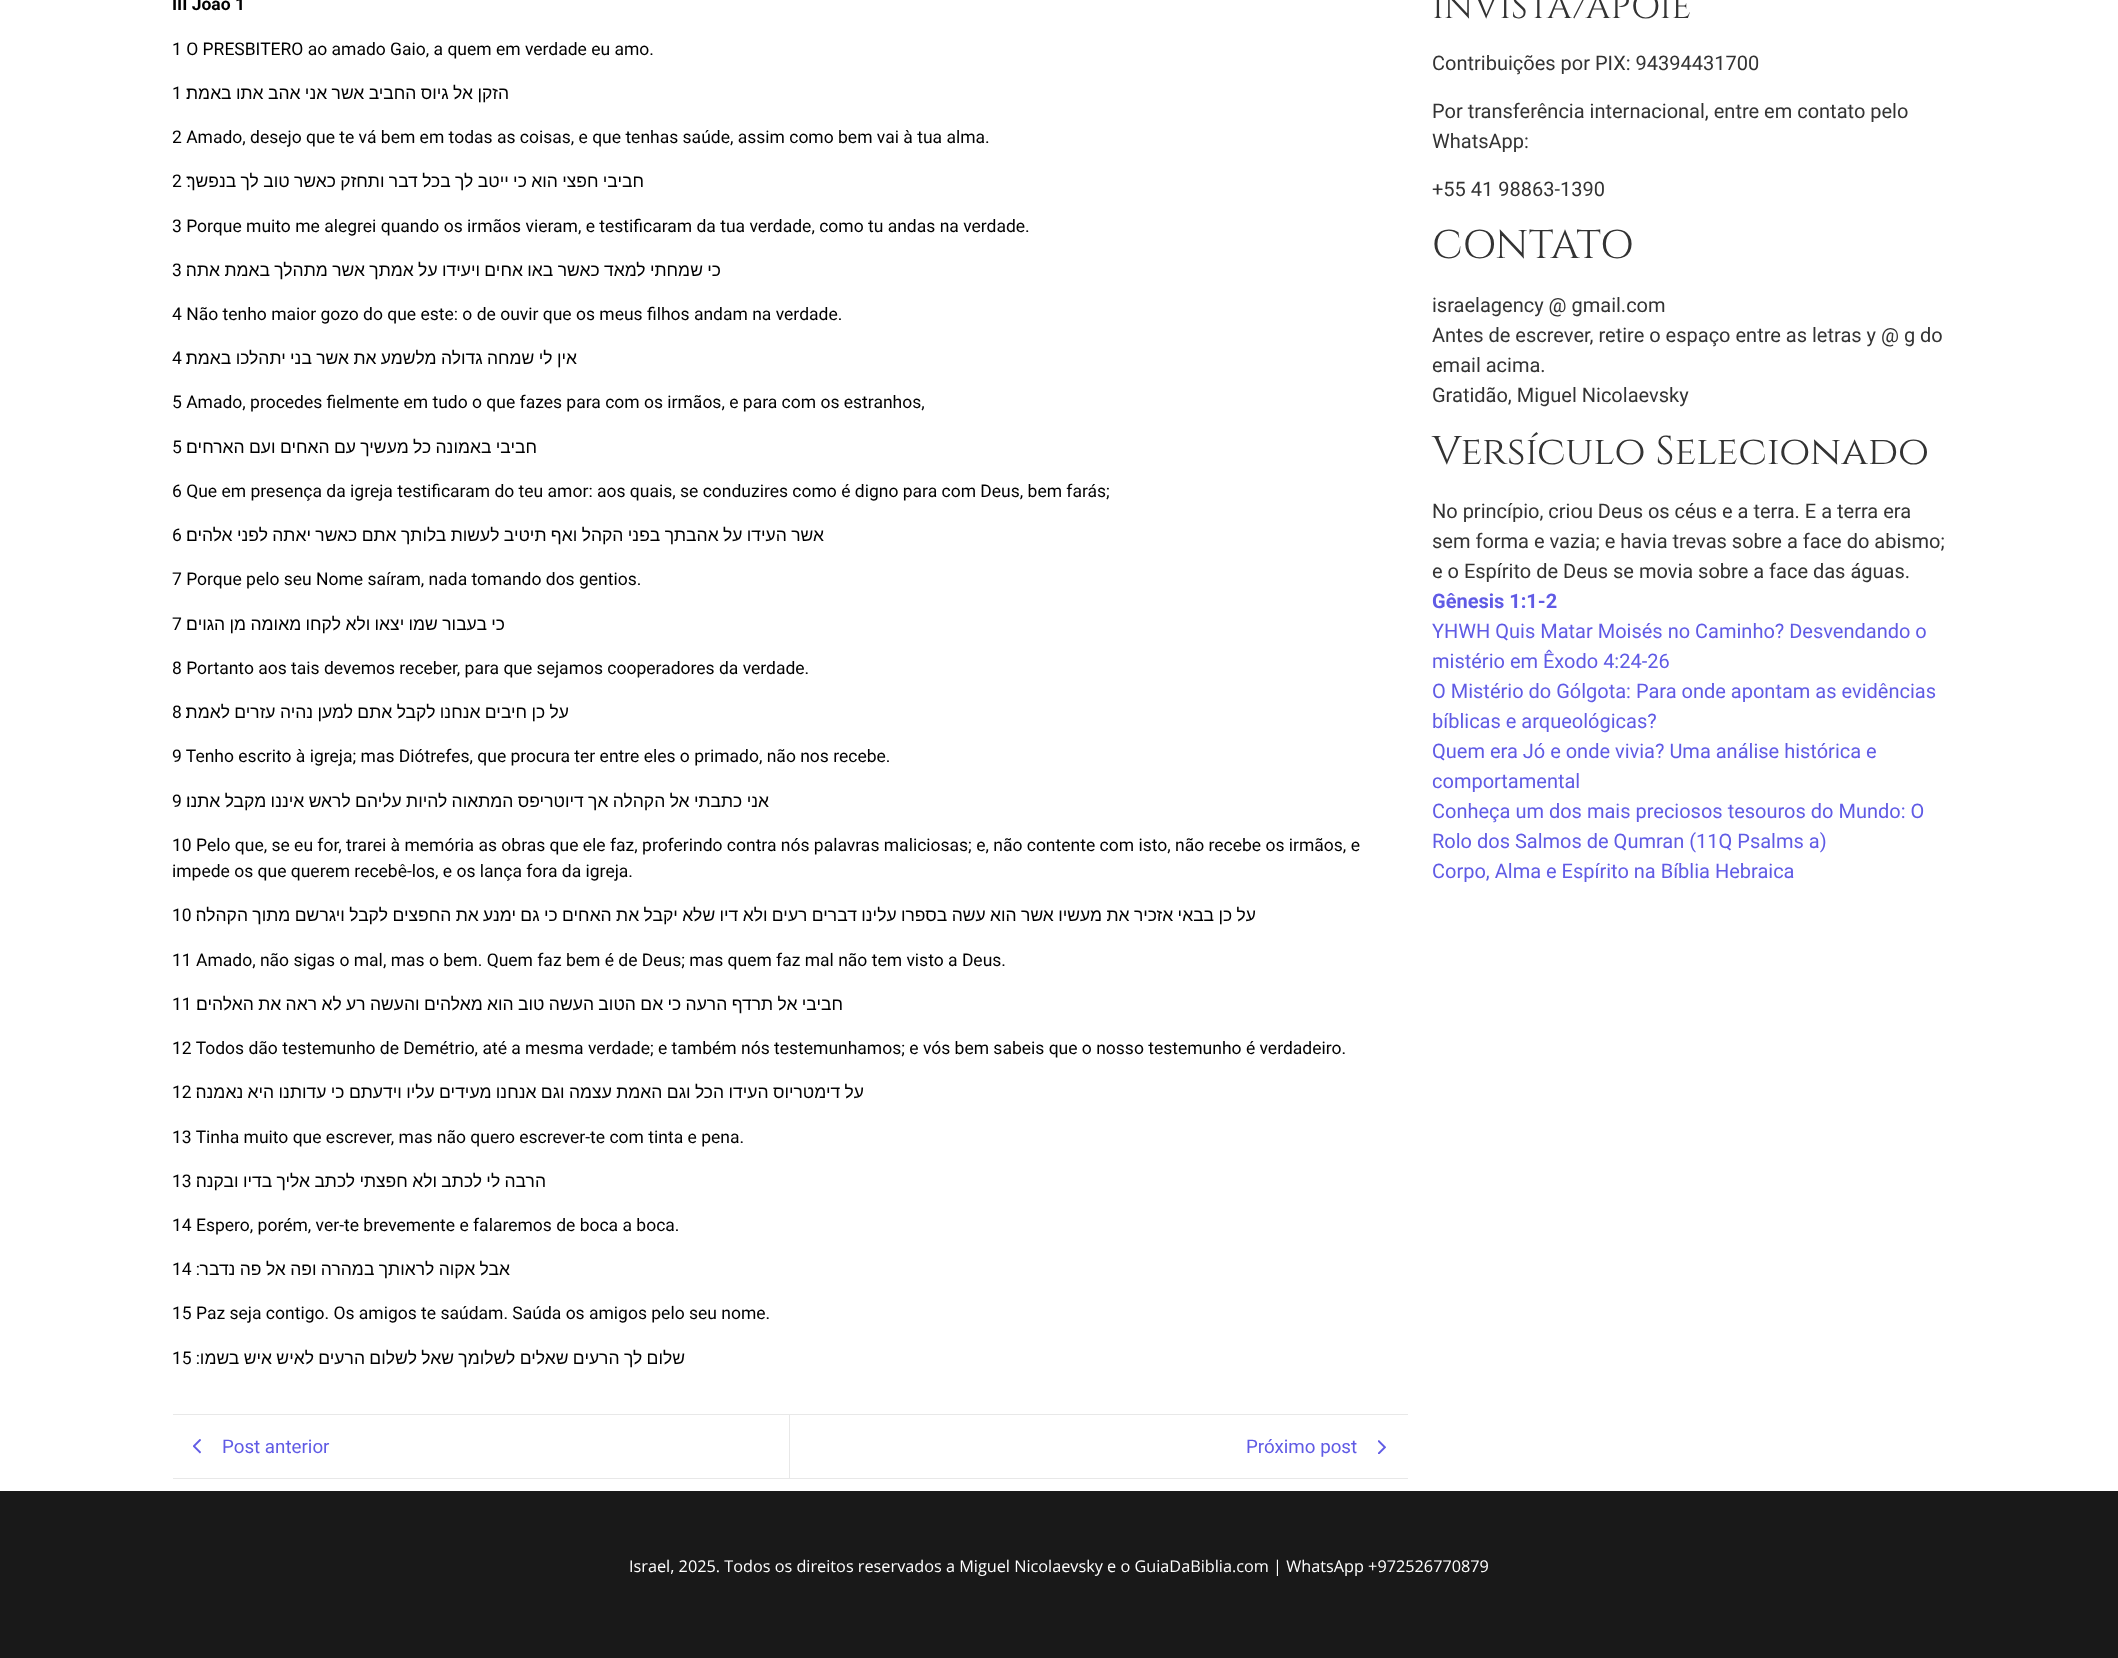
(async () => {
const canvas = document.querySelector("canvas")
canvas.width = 2118
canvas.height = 1658
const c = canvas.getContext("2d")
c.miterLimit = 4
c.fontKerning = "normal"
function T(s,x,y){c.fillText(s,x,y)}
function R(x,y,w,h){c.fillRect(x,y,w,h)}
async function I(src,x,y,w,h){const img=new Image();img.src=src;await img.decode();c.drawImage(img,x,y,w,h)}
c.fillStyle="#fff"
R(0,0,2118,1658)
c.font="bold 17.5px Roboto"
c.fillStyle="#000"
T("III João 1",172,10)
c.font="17.5px Roboto"
T("1 O PRESBITERO ao amado Gaio, a quem em verdade eu amo.",172,55)
T("1",172,99)
c.wordSpacing="-0.5px"
c.direction="rtl"
c.font="17.5px Liberation Sans"
T("הזקן אל גיוס החביב אשר אני אהב אתו באמת׃",509,99)
c.wordSpacing="0px"
c.direction="ltr"
c.font="17.5px Roboto"
T("2 Amado, desejo que te vá bem em todas as coisas, e que tenhas saúde, assim como bem vai à tua alma.",172,143)
T("2",172,187)
c.wordSpacing="-0.5px"
c.direction="rtl"
c.font="17.5px Liberation Sans"
T("חביבי חפצי הוא כי ייטב לך בכל דבר ותחזק כאשר טוב לך בנפשך׃",644,187)
c.wordSpacing="0px"
c.direction="ltr"
c.font="17.5px Roboto"
T("3 Porque muito me alegrei quando os irmãos vieram, e testificaram da tua verdade, como tu andas na verdade.",172,232)
T("3",172,276)
c.wordSpacing="-0.5px"
c.direction="rtl"
c.font="17.5px Liberation Sans"
T("כי שמחתי למאד כאשר באו אחים ויעידו על אמתך אשר מתהלך באמת אתה׃",721,276)
c.wordSpacing="0px"
c.direction="ltr"
c.font="17.5px Roboto"
T("4 Não tenho maior gozo do que este: o de ouvir que os meus filhos andam na verdade.",172,320)
T("4",172,364)
c.wordSpacing="-0.5px"
c.direction="rtl"
c.font="17.5px Liberation Sans"
T("אין לי שמחה גדולה מלשמע את אשר בני יתהלכו באמת׃",577,364)
c.wordSpacing="0px"
c.direction="ltr"
c.font="17.5px Roboto"
T("5 Amado, procedes fielmente em tudo o que fazes para com os irmãos, e para com os estranhos,",172,408)
T("5",172,453)
c.wordSpacing="-0.5px"
c.direction="rtl"
c.font="17.5px Liberation Sans"
T("חביבי באמונה כל מעשיך עם האחים ועם הארחים׃",537,453)
c.wordSpacing="0px"
c.direction="ltr"
c.font="17.5px Roboto"
T("6 Que em presença da igreja testificaram do teu amor: aos quais, se conduzires como é digno para com Deus, bem farás;",172,497)
T("6",172,541)
c.wordSpacing="-0.5px"
c.direction="rtl"
c.font="17.5px Liberation Sans"
T("אשר העידו על אהבתך בפני הקהל ואף תיטיב לעשות בלותך אתם כאשר יאתה לפני אלהים׃",824,541)
c.wordSpacing="0px"
c.direction="ltr"
c.font="17.5px Roboto"
T("7 Porque pelo seu Nome saíram, nada tomando dos gentios.",172,585)
T("7",172,630)
c.wordSpacing="-0.5px"
c.direction="rtl"
c.font="17.5px Liberation Sans"
T("כי בעבור שמו יצאו ולא לקחו מאומה מן הגוים׃",505,630)
c.wordSpacing="0px"
c.direction="ltr"
c.font="17.5px Roboto"
T("8 Portanto aos tais devemos receber, para que sejamos cooperadores da verdade.",172,674)
T("8",172,718)
c.wordSpacing="-0.5px"
c.direction="rtl"
c.font="17.5px Liberation Sans"
T("על כן חיבים אנחנו לקבל אתם למען נהיה עזרים לאמת׃",569,718)
c.wordSpacing="0px"
c.direction="ltr"
c.font="17.5px Roboto"
T("9 Tenho escrito à igreja; mas Diótrefes, que procura ter entre eles o primado, não nos recebe.",172,762)
T("9",172,807)
c.wordSpacing="-0.5px"
c.direction="rtl"
c.font="17.5px Liberation Sans"
T("אני כתבתי אל הקהלה אך דיוטריפס המתאוה להיות עליהם לראש איננו מקבל אתנו׃",769,807)
c.wordSpacing="0px"
c.direction="ltr"
c.font="17.5px Roboto"
T("10 Pelo que, se eu for, trarei à memória as obras que ele faz, proferindo contra nós palavras maliciosas; e, não contente com isto, não recebe os irmãos, e",172,851)
T("impede os que querem recebê-los, e os lança fora da igreja.",172,877)
T("10",172,921)
c.wordSpacing="-0.5px"
c.direction="rtl"
c.font="17.5px Liberation Sans"
T("על כן בבאי אזכיר את מעשיו אשר הוא עשה בספרו עלינו דברים רעים ולא דיו שלא יקבל את האחים כי גם ימנע את החפצים לקבל ויגרשם מתוך הקהלה׃",1256,921)
c.wordSpacing="0px"
c.direction="ltr"
c.font="17.5px Roboto"
T("11 Amado, não sigas o mal, mas o bem. Quem faz bem é de Deus; mas quem faz mal não tem visto a Deus.",172,966)
T("11",172,1010)
c.wordSpacing="-0.5px"
c.direction="rtl"
c.font="17.5px Liberation Sans"
T("חביבי אל תרדף הרעה כי אם הטוב העשה טוב הוא מאלהים והעשה רע לא ראה את האלהים׃",843,1010)
c.wordSpacing="0px"
c.direction="ltr"
c.font="17.5px Roboto"
T("12 Todos dão testemunho de Demétrio, até a mesma verdade; e também nós testemunhamos; e vós bem sabeis que o nosso testemunho é verdadeiro.",172,1054)
T("12",172,1098)
c.wordSpacing="-0.5px"
c.direction="rtl"
c.font="17.5px Liberation Sans"
T("על דימטריוס העידו הכל וגם האמת עצמה וגם אנחנו מעידים עליו וידעתם כי עדותנו היא נאמנה׃",864,1098)
c.wordSpacing="0px"
c.direction="ltr"
c.font="17.5px Roboto"
T("13 Tinha muito que escrever, mas não quero escrever-te com tinta e pena.",172,1143)
T("13",172,1187)
c.wordSpacing="-0.5px"
c.direction="rtl"
c.font="17.5px Liberation Sans"
T("הרבה לי לכתב ולא חפצתי לכתב אליך בדיו ובקנה׃",546,1187)
c.wordSpacing="0px"
c.direction="ltr"
c.font="17.5px Roboto"
T("14 Espero, porém, ver-te brevemente e falaremos de boca a boca.",172,1231)
T("14",172,1275)
c.direction="rtl"
T(":",200,1275)
c.wordSpacing="-0.5px"
c.font="17.5px Liberation Sans"
T("אבל אקוה לראותך במהרה ופה אל פה נדבר",510,1275)
c.wordSpacing="0px"
c.direction="ltr"
c.font="17.5px Roboto"
T("15 Paz seja contigo. Os amigos te saúdam. Saúda os amigos pelo seu nome.",172,1319)
T("15",172,1364)
c.direction="rtl"
T(":",200,1364)
c.wordSpacing="-0.5px"
c.font="17.5px Liberation Sans"
T("שלום לך הרעים שאלים לשלומך שאל לשלום הרעים לאיש איש בשמו",685,1364)
c.fillStyle="#e8e8e8"
R(173,1414,1235,1)
R(173,1478,1235,1)
await I("1.png",193,1439,8,15)
c.wordSpacing="0px"
c.direction="ltr"
c.font="18.75px Roboto"
c.fillStyle="#605be5"
T("Post anterior",222,1453)
c.fillStyle="#e8e8e8"
R(789,1415,1,63)
c.fillStyle="#605be5"
T("Próximo post",1246,1453)
await I("2.png",1378,1440,8,14)
c.font="35px Cinzel"
c.fillStyle="#333"
T("INVISTA/APOIE",1432,18)
c.font="20px Roboto"
T("Contribuições por PIX: 94394431700",1432,70)
T("Por transferência internacional, entre em contato pelo",1432,118)
T("WhatsApp:",1432,148)
T("+55 41 98863-1390",1432,196)
c.font="40px Cinzel"
T("CONTATO",1432,258)
c.font="20px Roboto"
T("israelagency @ gmail.com",1432,312)
T("Antes de escrever, retire o espaço entre as letras y @ g do",1432,342)
T("email acima.",1432,372)
T("Gratidão, Miguel Nicolaevsky",1432,402)
c.font="40px Cinzel"
T("Versículo Selecionado",1432,464)
c.font="20px Roboto"
T("No princípio, criou Deus os céus e a terra. E a terra era",1432,518)
T("sem forma e vazia; e havia trevas sobre a face do abismo;",1432,548)
T("e o Espírito de Deus se movia sobre a face das águas.",1432,578)
c.font="bold 20px Roboto"
c.fillStyle="#605be5"
T("Gênesis 1:1-2",1432,608)
c.font="20px Roboto"
T("YHWH Quis Matar Moisés no Caminho? Desvendando o",1432,638)
T("mistério em Êxodo 4:24-26",1432,668)
T("O Mistério do Gólgota: Para onde apontam as evidências",1432,698)
T("bíblicas e arqueológicas?",1432,728)
T("Quem era Jó e onde vivia? Uma análise histórica e",1432,758)
T("comportamental",1432,788)
T("Conheça um dos mais preciosos tesouros do Mundo: O",1432,818)
T("Rolo dos Salmos de Qumran (11Q Psalms a)",1432,848)
T("Corpo, Alma e Espírito na Bíblia Hebraica",1432,878)
c.fillStyle="#191919"
R(0,1491,2118,167)
c.font="16.25px Open Sans"
c.fillStyle="#fff"
T("Israel, 2025. Todos os direitos reservados a Miguel Nicolaevsky e o GuiaDaBiblia.com | WhatsApp +972526770879",629,1572)
})()
